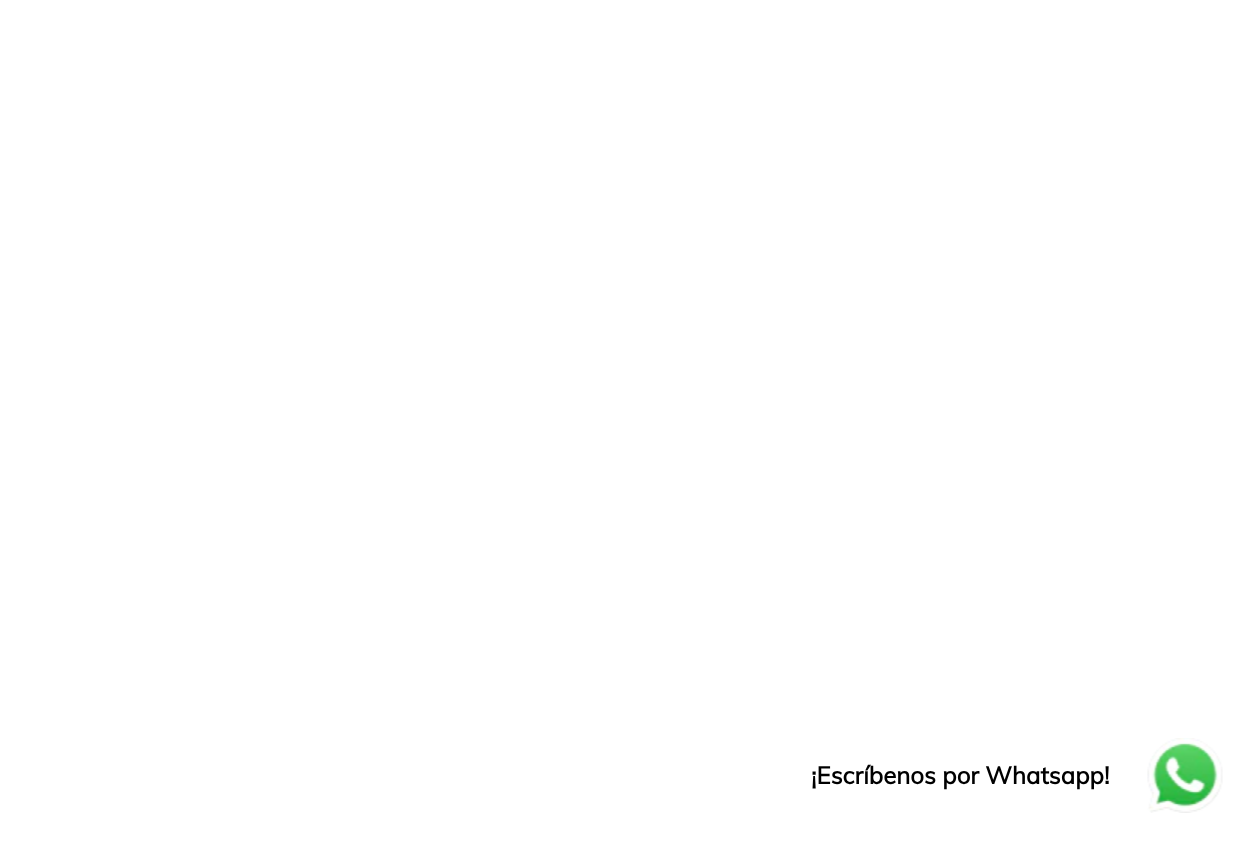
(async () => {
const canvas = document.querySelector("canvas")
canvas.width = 1242
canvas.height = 858
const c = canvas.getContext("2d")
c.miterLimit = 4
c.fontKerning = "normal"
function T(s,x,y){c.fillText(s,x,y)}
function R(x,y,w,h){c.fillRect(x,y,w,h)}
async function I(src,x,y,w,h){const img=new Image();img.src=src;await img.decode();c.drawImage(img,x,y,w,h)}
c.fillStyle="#fff"
R(0,0,1242,858)
await I("1.png",1147,738,76,75)
c.font="bold 24px Muli"
c.fillStyle="#000"
T("¡Escríbenos por Whatsapp!",811,784)
})()
